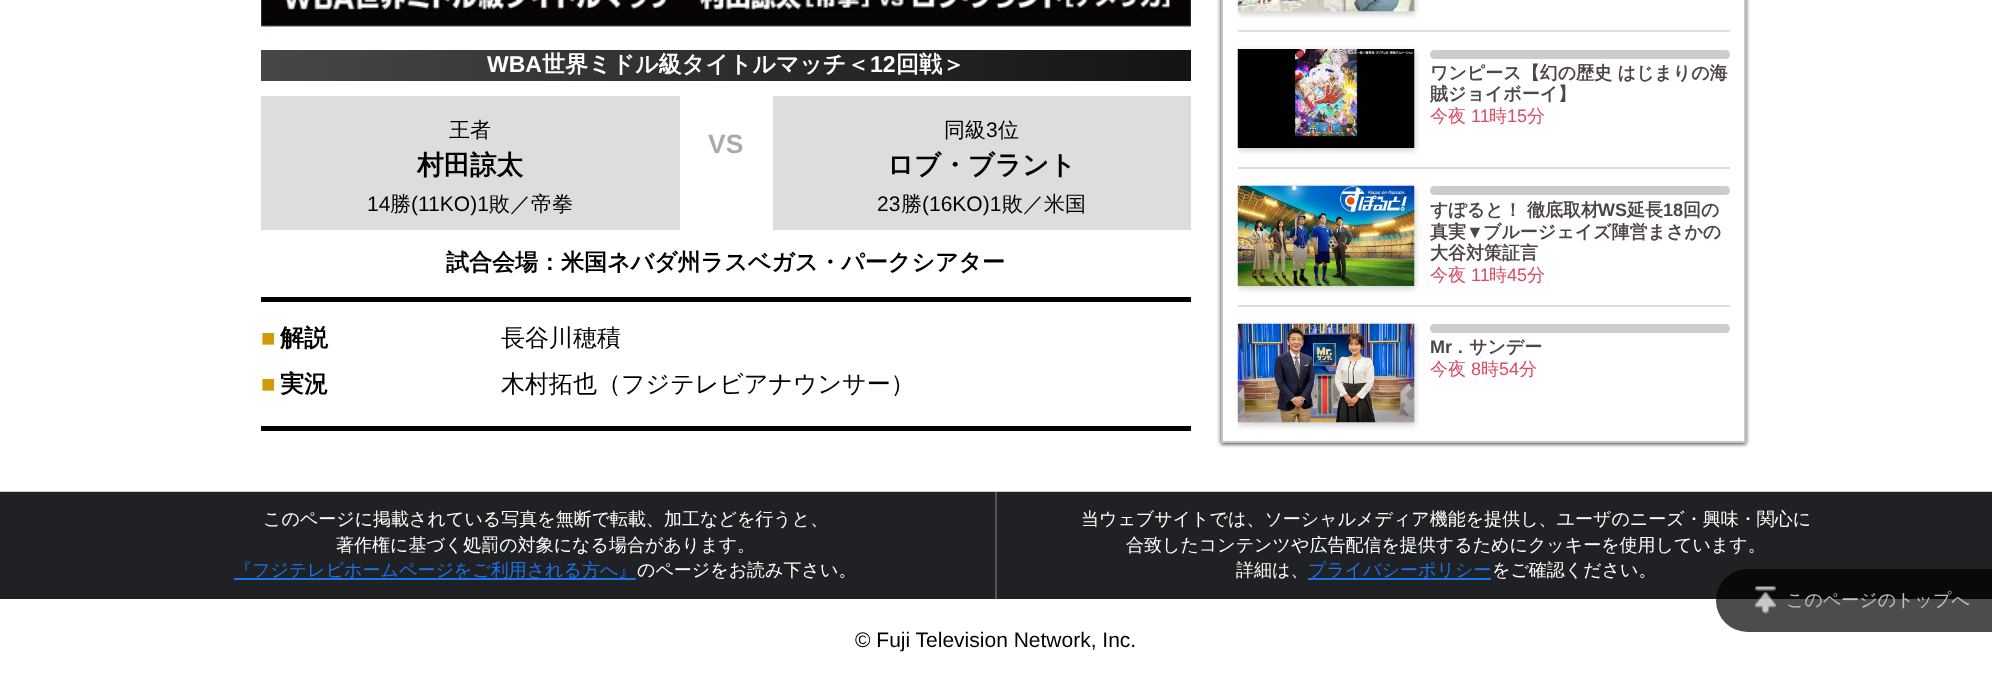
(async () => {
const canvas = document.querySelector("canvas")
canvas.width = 1992
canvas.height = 679
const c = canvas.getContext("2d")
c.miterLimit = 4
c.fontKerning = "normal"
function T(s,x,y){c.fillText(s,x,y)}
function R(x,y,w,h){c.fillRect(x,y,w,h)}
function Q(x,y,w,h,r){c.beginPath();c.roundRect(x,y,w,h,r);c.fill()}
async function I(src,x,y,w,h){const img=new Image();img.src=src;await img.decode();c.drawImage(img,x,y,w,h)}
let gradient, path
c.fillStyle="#fff"
R(0,0,1992,679)
c.fillStyle="#ccc"
R(0,491,1992,1)
await I("1.png",261,0,930,27)
c.fillStyle="#000"
R(261,297,930,5)
gradient = c.createLinearGradient(261,65,1191,65)
gradient.addColorStop(0,"#474747")
gradient.addColorStop(1,"#141414")
c.fillStyle = gradient
R(261,50,930,31)
c.font="bold 23px Liberation Sans"
c.fillStyle="#fff"
T("WBA",487,72)
c.font="bold 23px WenQuanYi Zen Hei"
T("世界ミドル級タイトルマッチ＜",542,72)
c.font="bold 23px Liberation Sans"
T("12",870,72)
c.font="bold 23px WenQuanYi Zen Hei"
T("回戦＞",896,72)
c.fillStyle="#ddd"
R(261,96,419,134)
c.font="500 21px WenQuanYi Zen Hei"
c.fillStyle="#000"
T("王者",449,137)
c.font="bold 26.5px WenQuanYi Zen Hei"
T("村田諒太",417,174)
c.font="21px Liberation Sans"
T("14",367,211)
c.font="500 21px WenQuanYi Zen Hei"
T("勝",390,211)
c.font="21px Liberation Sans"
T("(11KO)1",411,211)
c.font="500 21px WenQuanYi Zen Hei"
T("敗／帝拳",489,211)
c.font="bold 26.5px Liberation Sans"
c.fillStyle="#aaa"
T("VS",708,153)
c.fillStyle="#ddd"
R(773,96,418,134)
c.font="500 21px WenQuanYi Zen Hei"
c.fillStyle="#000"
T("同級",944,137)
c.font="21px Liberation Sans"
T("3",986,137)
c.font="500 21px WenQuanYi Zen Hei"
T("位",998,137)
c.font="bold 26.5px WenQuanYi Zen Hei"
T("ロブ・ブラント",887,174)
c.font="21px Liberation Sans"
T("23",877,211)
c.font="500 21px WenQuanYi Zen Hei"
T("勝",901,211)
c.font="21px Liberation Sans"
T("(16KO)1",922,211)
c.font="500 21px WenQuanYi Zen Hei"
T("敗／米国",1002,211)
c.font="bold 23px WenQuanYi Zen Hei"
T("試合会場：米国ネバダ州ラスベガス・パークシアター",446,270)
R(261,426,930,5)
c.font="bold 24px Liberation Sans"
c.fillStyle="#d19a06"
T("■",261,346)
c.font="bold 24px WenQuanYi Zen Hei"
c.fillStyle="#000"
T("解説",280,346)
c.font="500 24px WenQuanYi Zen Hei"
T("長谷川穂積",501,346)
c.font="bold 24px Liberation Sans"
c.fillStyle="#d19a06"
T("■",261,392)
c.font="bold 24px WenQuanYi Zen Hei"
c.fillStyle="#000"
T("実況",280,392)
c.font="500 24px WenQuanYi Zen Hei"
T("木村拓也（フジテレビアナウンサー）",501,392)
c.save()
path = new Path2D("M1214 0h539v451h-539zm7-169h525v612h-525z")
c.clip(path,"evenodd")
c.fillStyle="#333"
c.filter="blur(2px)"
c.beginPath()
c.rect(1221,-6,525,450)
c.fill()
c.filter="none"
c.restore()
c.strokeStyle="#c9c2c2"
c.lineWidth=2
c.strokeRect(1222,-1,523,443)
c.fillStyle="#dcdcdc"
R(1238,30,492,2)
c.save()
c.beginPath()
c.rect(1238,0,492,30)
c.clip()
c.fillStyle="#00000033"
c.filter="blur(3px)"
c.beginPath()
c.rect(1238,-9,177,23)
c.fill()
c.filter="none"
c.restore()
await I("2.png",1237,0,178,12)
R(1238,167,492,2)
c.save()
c.beginPath()
c.rect(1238,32,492,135)
c.clip()
c.fillStyle="#00000033"
c.filter="blur(3px)"
c.beginPath()
c.rect(1238,51,177,99)
c.fill()
c.filter="none"
c.restore()
await I("3.png",1237,49,178,99)
c.fillStyle="#ccc"
Q(1430,50,300,9,4.5)
c.font="bold 18px WenQuanYi Zen Hei"
c.fillStyle="#504545"
T("ワンピース【幻の歴史 はじまりの海",1430,79)
T("賊ジョイボーイ】",1430,100)
c.font="500 18px WenQuanYi Zen Hei"
c.fillStyle="#d94c63"
T("今夜",1430,122)
c.font="18px Liberation Sans"
T("11",1471,122)
c.font="500 18px WenQuanYi Zen Hei"
T("時",1489,122)
c.font="18px Liberation Sans"
T("15",1507,122)
c.font="500 18px WenQuanYi Zen Hei"
T("分",1527,122)
c.fillStyle="#dcdcdc"
R(1238,305,492,2)
c.save()
c.beginPath()
c.rect(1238,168,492,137)
c.clip()
c.fillStyle="#00000033"
c.filter="blur(3px)"
c.beginPath()
c.rect(1238,188,177,100)
c.fill()
c.filter="none"
c.restore()
await I("4.png",1237,185,178,101)
c.fillStyle="#ccc"
Q(1430,186,300,9,4.5)
c.font="bold 18px WenQuanYi Zen Hei"
c.fillStyle="#504545"
T("すぽると！ 徹底取材",1430,216)
c.font="bold 18px Liberation Sans"
T("WS",1598,216)
c.font="bold 18px WenQuanYi Zen Hei"
T("延長",1627,216)
c.font="bold 18px Liberation Sans"
T("18",1663,216)
c.font="bold 18px WenQuanYi Zen Hei"
T("回の",1683,216)
T("真実",1430,238)
c.font="bold 18px Liberation Sans"
T("▼",1466,238)
c.font="bold 18px WenQuanYi Zen Hei"
T("ブルージェイズ陣営まさかの",1483,238)
T("大谷対策証言",1430,259)
c.font="500 18px WenQuanYi Zen Hei"
c.fillStyle="#d94c63"
T("今夜",1430,281)
c.font="18px Liberation Sans"
T("11",1471,281)
c.font="500 18px WenQuanYi Zen Hei"
T("時",1489,281)
c.font="18px Liberation Sans"
T("45",1507,281)
c.font="500 18px WenQuanYi Zen Hei"
T("分",1527,281)
c.save()
c.beginPath()
c.rect(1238,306,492,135)
c.clip()
c.fillStyle="#00000033"
c.filter="blur(3px)"
c.beginPath()
c.rect(1238,326,177,99)
c.fill()
c.filter="none"
c.restore()
await I("5.png",1237,323,178,100)
c.fillStyle="#ccc"
Q(1430,324,300,9,4.5)
c.font="bold 18px Liberation Sans"
c.fillStyle="#504545"
T("Mr",1430,353)
c.font="bold 18px WenQuanYi Zen Hei"
T("．サンデー",1451,353)
c.font="500 18px WenQuanYi Zen Hei"
c.fillStyle="#d94c63"
T("今夜",1430,375)
c.font="18px Liberation Sans"
T("8",1471,375)
c.font="500 18px WenQuanYi Zen Hei"
T("時",1481,375)
c.font="18px Liberation Sans"
T("54",1499,375)
c.font="500 18px WenQuanYi Zen Hei"
T("分",1519,375)
c.fillStyle="#202124"
R(0,492,1992,107)
c.fillStyle="#555"
R(995,492,2,107)
c.fillStyle="#fff"
T("このページに掲載されている写真を無断で転載、加工などを行うと、",263,525)
T("著作権に基づく処罰の対象になる場合があります。",336,551)
c.fillStyle="#1a73e8"
R(234,578,402,2)
T("『フジテレビホームページをご利用される方へ』",234,576)
c.fillStyle="#fff"
T("のページをお読み下さい。",637,576)
T("当ウェブサイトでは、ソーシャルメディア機能を提供し、ユーザのニーズ・興味・関⼼に",1081,525)
T("合致したコンテンツや広告配信を提供するためにクッキーを使⽤しています。",1126,551)
T("詳細は、",1236,576)
c.fillStyle="#1a73e8"
R(1308,578,183,2)
T("プライバシーポリシー",1308,576)
c.fillStyle="#fff"
T("をご確認ください。",1492,576)
c.font="21px Liberation Sans"
c.fillStyle="#000"
T("© Fuji Television Network, Inc.",855,647)
c.fillStyle="#000000b3"
c.beginPath()
c.roundRect(1716,569,276,63,[31.5,0,0,31.5])
c.fill()
await I("6.png",1755,586,21,28)
c.font="500 18px WenQuanYi Zen Hei"
c.fillStyle="#c1c1c1"
T("このページのトップへ",1786,606)
})()
